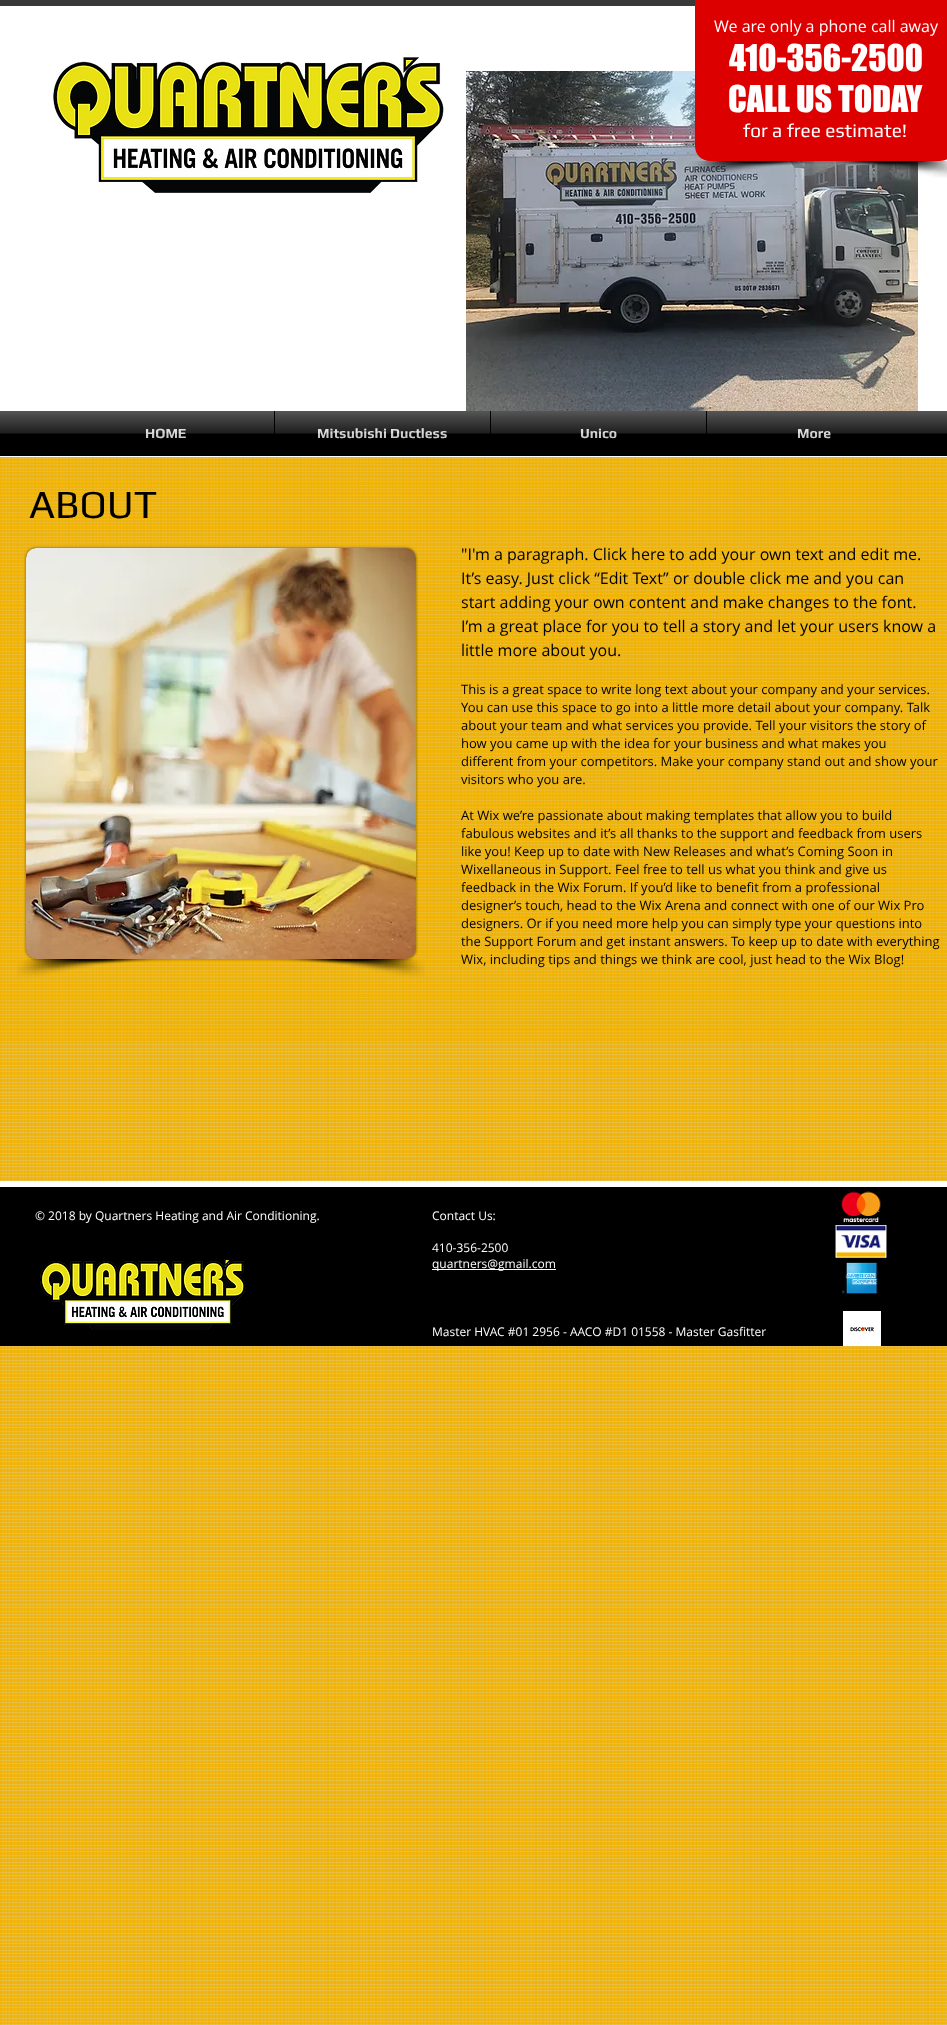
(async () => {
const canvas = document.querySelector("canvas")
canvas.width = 947
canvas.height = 2025
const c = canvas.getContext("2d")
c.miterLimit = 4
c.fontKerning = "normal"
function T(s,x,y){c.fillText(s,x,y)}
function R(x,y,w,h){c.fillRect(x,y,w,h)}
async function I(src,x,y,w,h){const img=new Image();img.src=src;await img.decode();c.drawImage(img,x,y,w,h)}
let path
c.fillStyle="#f1b201"
R(0,0,947,2025)
c.fillStyle="#fff"
R(0,6,947,451)
c.fillStyle="#383838"
R(0,0,695,6)
await I("1.png",53,57,391,136)
await I("2.png",466,71,452,340)
c.fillStyle="#d00"
path = new Path2D("M695 0h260v146c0 8.5-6.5 15-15 15h-230c-8.5 0-15-6.5-15-15z")
c.fill(path)
c.font="16px Open Sans"
c.fillStyle="#fff"
T("We are only a phone call away",714,32)
c.font="34px 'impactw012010'"
T("410-356-2500",729,71)
T("CALL US TODAY",728,112)
c.font="19px Play"
T("for a free estimate!",743,137)
await I("3.png",686,161,147,18)
await I("4.png",818,161,129,17)
c.fillStyle="#000"
R(0,411,947,45)
await I("5.png",0,411,947,23)
R(58,411,864,23)
c.font="bold 14px Play"
c.fillStyle="#d9d9d9"
T("HOME",145,438)
await I("6.png",58,411,216,27)
T("Mitsubishi Ductless",317,438)
await I("7.png",275,411,215,27)
T("Unico",580,438)
await I("8.png",491,411,215,27)
T("More",797,438)
await I("9.png",707,411,215,27)
await I("16.png",0,457,947,1568)
c.fillStyle="#f1b2014d"
R(0,457,947,585)
c.font="40px Play"
c.fillStyle="#000"
T("ABOUT",29,518)
c.fillStyle="#00000080"
c.filter="blur(1.5px)"
c.beginPath()
c.roundRect(26,548,390,411,10)
c.fill()
c.filter="none"
await I("10.png",26,548,390,411)
await I("11.png",17,959,154,18)
await I("12.png",271,959,154,18)
c.font="16px Open Sans"
c.fillStyle="#000"
T("\"I'm a paragraph. Click here to add your own text and edit me.",461,560)
T("It’s easy. Just click “Edit Text” or double click me and you can",461,584)
T("start adding your own content and make changes to the font.",461,608)
T("I’m a great place for you to tell a story and let your users know a",461,632)
T("little more about you.",461,656)
c.font="13px Open Sans"
T("This is a great space to write long text about your company and your services.",461,694)
T("You can use this space to go into a little more detail about your company. Talk",461,712)
T("about your team and what services you provide. Tell your visitors the story of",461,730)
T("how you came up with the idea for your business and what makes you",461,748)
T("different from your competitors. Make your company stand out and show your",461,766)
T("visitors who you are.",461,784)
T("At Wix we’re passionate about making templates that allow you to build",461,820)
T("fabulous websites and it’s all thanks to the support and feedback from users",461,838)
T("like you! Keep up to date with New Releases and what’s Coming Soon in",461,856)
T("Wixellaneous in Support. Feel free to tell us what you think and give us",461,874)
T("feedback in the Wix Forum. If you’d like to benefit from a professional",461,892)
T("designer’s touch, head to the Wix Arena and connect with one of our Wix Pro",461,910)
T("designers. Or if you need more help you can simply type your questions into",461,928)
T("the Support Forum and get instant answers. To keep up to date with everything",461,946)
T("Wix, including tips and things we think are cool, just head to the Wix Blog!",461,964)
R(0,1187,947,159)
c.fillStyle="#fff"
R(0,1181,947,6)
c.font="12px Open Sans"
T("© 2018 by Quartners Heating and Air Conditioning.",35,1220)
T("Contact Us:",432,1220)
T("410-356-2500",432,1252)
R(432,1269,124,1)
T("quartners@gmail.com",432,1268)
await I("13.png",835,1191,52,103)
await I("14.png",40,1258,206,73)
T("Master HVAC #01 2956 - AACO #D1 01558 - Master Gasfitter",432,1336)
await I("15.png",843,1311,38,35)
})()
